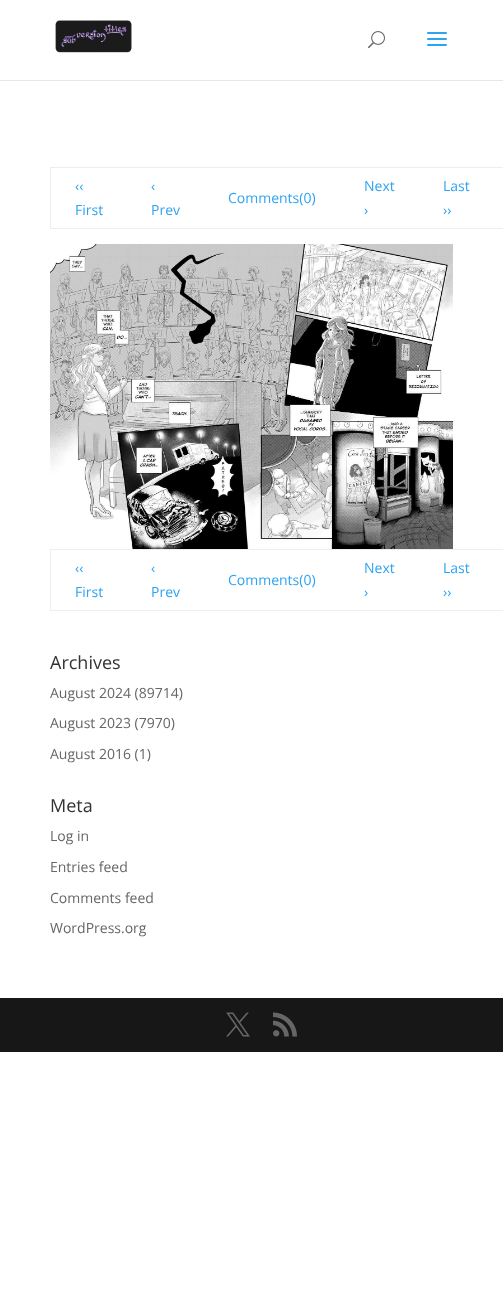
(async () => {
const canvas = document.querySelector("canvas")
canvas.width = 503
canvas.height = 1300
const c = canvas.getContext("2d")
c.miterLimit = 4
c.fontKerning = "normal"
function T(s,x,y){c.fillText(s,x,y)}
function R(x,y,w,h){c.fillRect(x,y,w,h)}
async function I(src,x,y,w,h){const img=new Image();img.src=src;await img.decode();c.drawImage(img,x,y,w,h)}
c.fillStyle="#fff"
R(0,0,503,1300)
c.fillStyle="#e6e6e6"
R(0,80,503,1)
await I("1.png",55,20,77,33)
await I("2.png",368,31,17,18)
await I("3.png",427,32,20,14)
c.fillStyle="#eee"
R(50,167,453,1)
R(50,228,453,1)
R(50,167,1,62)
c.font="14px Open Sans"
c.fillStyle="#2ea3f2"
T("‹‹",75,191)
T("First",75,215)
T("‹",151,191)
T("Prev",151,215)
T("Comments(0)",228,203)
T("Next",364,191)
T("›",364,215)
T("Last",443,191)
T("››",443,215)
await I("4.png",50,244,403,305)
c.fillStyle="#eee"
R(50,549,453,1)
R(50,610,453,1)
R(50,549,1,62)
c.fillStyle="#2ea3f2"
T("‹‹",75,573)
T("First",75,597)
T("‹",151,573)
T("Prev",151,597)
T("Comments(0)",228,585)
T("Next",364,573)
T("›",364,597)
T("Last",443,573)
T("››",443,597)
c.font="18px Open Sans"
c.fillStyle="#333"
T("Archives",50,669)
c.font="14px Open Sans"
c.fillStyle="#666"
T("August 2024 (89714)",50,698)
T("August 2023 (7970)",50,728)
T("August 2016 (1)",50,759)
c.font="18px Open Sans"
c.fillStyle="#333"
T("Meta",50,812)
c.font="14px Open Sans"
c.fillStyle="#666"
T("Log in",50,841)
T("Entries feed",50,872)
T("Comments feed",50,903)
T("WordPress.org",50,933)
c.fillStyle="#171717"
R(0,998,503,54)
await I("5.png",226,1012,24,25)
await I("6.png",273,1012,24,25)
})()
